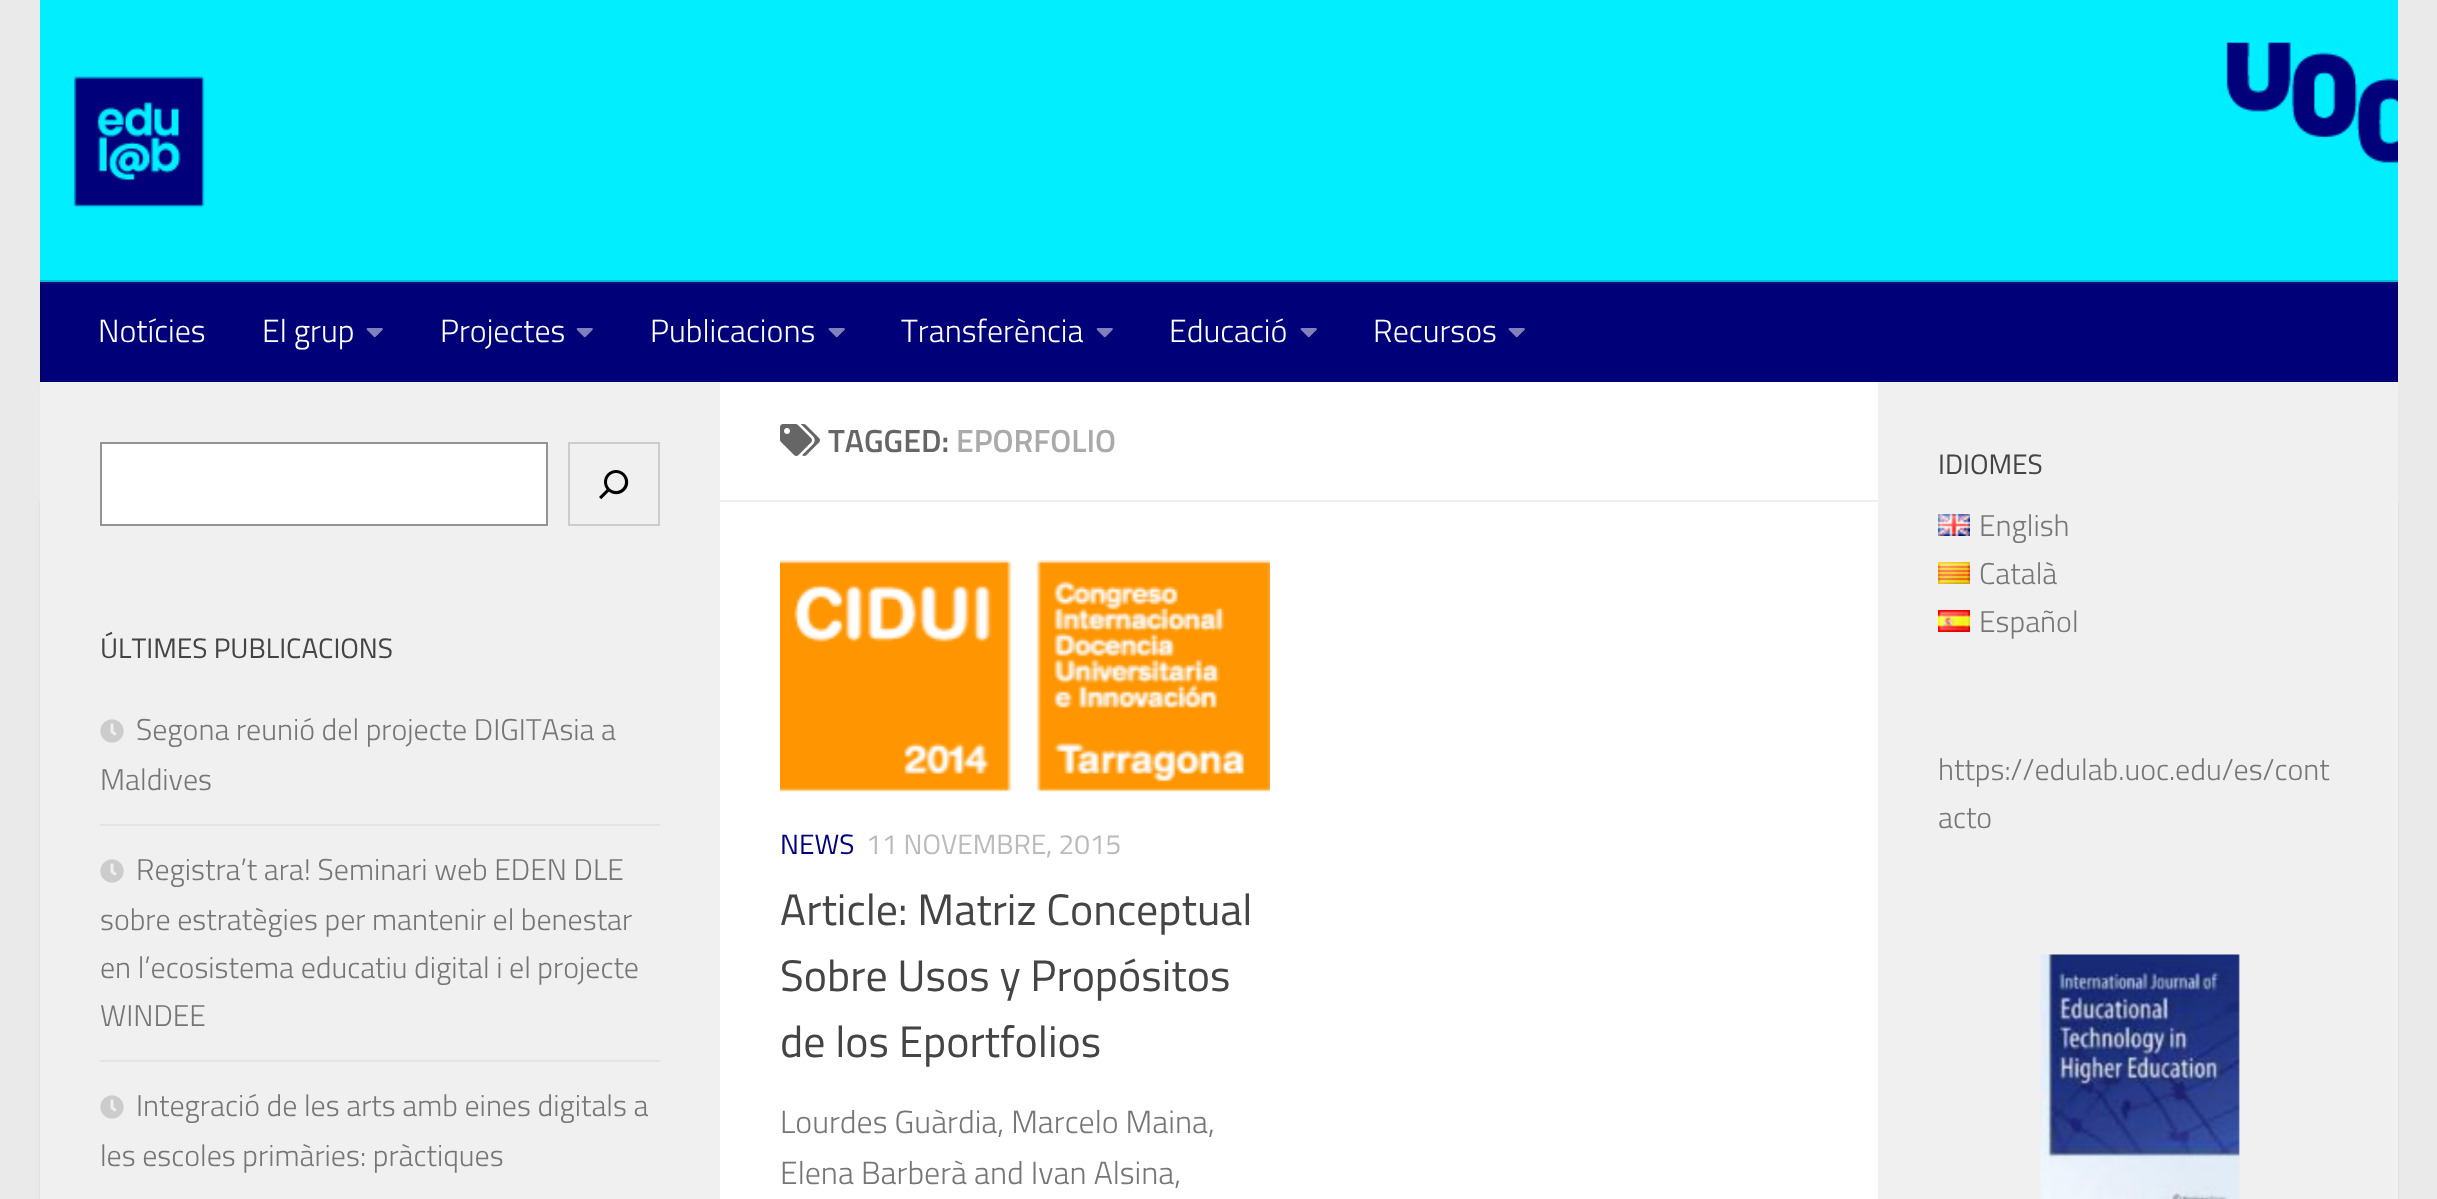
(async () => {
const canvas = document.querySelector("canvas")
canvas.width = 2437
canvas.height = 1199
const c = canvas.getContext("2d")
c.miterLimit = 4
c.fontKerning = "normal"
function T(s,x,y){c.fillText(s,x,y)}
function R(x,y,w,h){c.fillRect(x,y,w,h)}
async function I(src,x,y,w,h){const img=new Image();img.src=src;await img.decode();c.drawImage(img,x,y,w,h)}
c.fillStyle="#eaeaea"
R(0,0,2437,1199)
c.fillStyle="#0000001a"
c.filter="blur(1px)"
c.beginPath()
c.rect(40,384,2358,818)
c.fill()
c.filter="none"
c.fillStyle="#eaeaea"
R(39,383,2360,119)
await I("1.png",40,0,2358,280)
c.fillStyle="#00becc"
R(40,280,2358,2)
c.fillStyle="#000078"
R(42,284,2354,98)
c.fillStyle="#0d0d7f"
R(40,282,2358,2)
c.fillStyle="#000060"
R(2396,282,2,100)
c.fillStyle="#0d0d68"
R(2396,282,2,2)
c.fillStyle="#000060"
R(40,282,2,100)
c.fillStyle="#0d0d68"
R(40,282,2,2)
c.font="300 32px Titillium"
c.fillStyle="#fff"
T("Notícies",98,342)
T("El grup",262,342)
await I("2.png",366,328,17,10)
T("Projectes",440,342)
await I("2.png",576,328,17,10)
T("Publicacions",650,342)
await I("2.png",828,328,17,10)
T("Transferència",901,342)
await I("2.png",1096,328,17,10)
T("Educació",1169,342)
await I("2.png",1300,328,17,10)
T("Recursos",1373,342)
await I("2.png",1508,328,17,10)
R(720,382,1158,817)
c.fillStyle="#f0f0f0"
R(40,382,680,817)
R(1878,382,520,817)
c.fillStyle="#fff"
c.beginPath()
c.rect(101,443,446,82)
c.fill()
c.strokeStyle="#949494"
c.lineWidth=2
c.stroke()
c.strokeStyle="#ccc"
c.strokeRect(569,443,90,82)
await I("3.png",599,470,30,30)
c.font="28.1px Titillium"
c.fillStyle="#444"
T("ÚLTIMES PUBLICACIONS",100,658)
c.fillStyle="#e4e4e4"
R(100,824,560,2)
await I("4.png",100,719,24,24)
c.font="300 30px Titillium"
c.fillStyle="#767676"
T("Segona reunió del projecte DIGITAsia a",136,740)
T("Maldives",100,790)
c.fillStyle="#e4e4e4"
R(100,1060,560,2)
await I("4.png",100,859,24,24)
c.fillStyle="#767676"
T("Registra’t ara! Seminari web EDEN DLE",136,880)
T("sobre estratègies per mantenir el benestar",100,930)
T("en l’ecosistema educatiu digital i el projecte",100,978)
T("WINDEE",100,1026)
await I("4.png",100,1095,24,24)
T("Integració de les arts amb eines digitals a",136,1116)
T("les escoles primàries: pràctiques",100,1166)
c.fillStyle="#eee"
R(720,500,1158,2)
await I("5.png",780,424,40,32)
c.font="600 32px Titillium"
c.fillStyle="#666"
T("TAGGED:",828,452)
c.fillStyle="#aaa"
T("EPORFOLIO",956,452)
await I("6.png",780,560,490,232)
c.font="28px Titillium"
c.fillStyle="#000078"
T("NEWS",780,854)
c.fillStyle="#bbb"
T("11 NOVEMBRE, 2015",866,854)
c.font="44px Titillium"
c.fillStyle="#444"
T("Article: Matriz Conceptual",780,925)
T("Sobre Usos y Propósitos",780,991)
T("de los Eportfolios",780,1057)
c.font="300 32px Titillium"
c.fillStyle="#767676"
T("Lourdes Guàrdia, Marcelo Maina,",780,1133)
T("Elena Barberà and Ivan Alsina,",780,1184)
c.font="28.1px Titillium"
c.fillStyle="#444"
T("IDIOMES",1938,474)
await I("7.png",1938,514,32,22)
c.font="300 30px Titillium"
c.fillStyle="#767676"
T("English",1979,536)
await I("8.png",1938,562,32,22)
T("Català",1979,584)
await I("9.png",1938,610,32,22)
T("Español",1979,632)
T("https://edulab.uoc.edu/es/cont",1938,780)
T("acto",1938,828)
await I("10.png",2040,954,200,245)
})()
